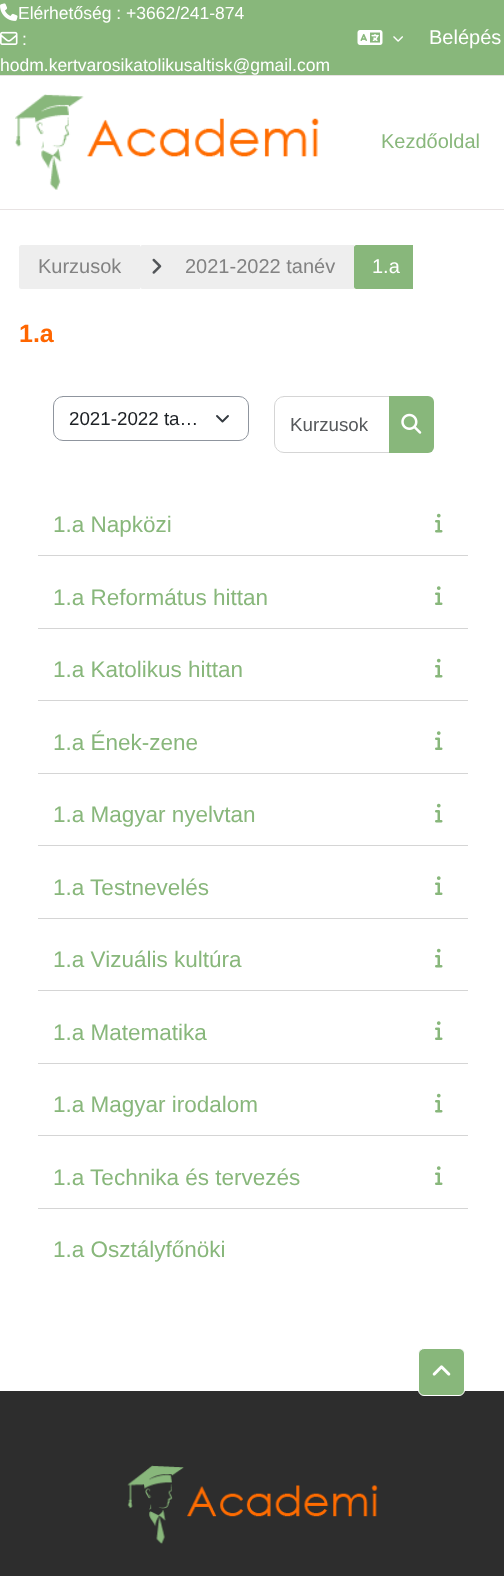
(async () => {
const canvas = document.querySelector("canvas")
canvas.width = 504
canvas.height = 1576
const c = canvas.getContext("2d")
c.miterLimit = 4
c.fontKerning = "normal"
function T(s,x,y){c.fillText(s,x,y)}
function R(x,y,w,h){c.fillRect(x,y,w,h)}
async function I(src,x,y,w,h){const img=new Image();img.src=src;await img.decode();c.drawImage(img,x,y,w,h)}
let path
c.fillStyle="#fff"
R(0,0,504,1576)
c.fillStyle="#88b77b"
R(0,0,504,75)
c.fillStyle="#e8e3e3"
R(0,75,504,1)
await I("1.png",0,3,18,18)
c.font="17.5px Liberation Sans"
c.fillStyle="#fff"
T("Elérhetőség : +3662/241-874",18,19)
await I("2.png",0,31,18,14)
T(":",22,45)
T("hodm.kertvarosikatolikusaltisk@gmail.com",0,71)
await I("3.png",357,30,26,15)
await I("4.png",393,36,10,6)
c.font="20px Liberation Sans"
T("Belépés",429,44)
c.fillStyle="#e8e3e3"
R(0,209,504,1)
await I("5.png",15,94,304,96)
c.fillStyle="#88b77b"
T("Kezdőoldal",381,148)
c.fillStyle="#eee"
c.beginPath()
c.roundRect(19,245,121,44,[2.5,0,0,2.5])
c.fill()
c.fillStyle="#828282"
T("Kurzusok",38,273)
c.fillStyle="#eee"
c.beginPath()
c.roundRect(140,245,214,44,[2.5,0,0,2.5])
c.fill()
await I("6.png",152,258,10,16)
c.fillStyle="#828282"
T("2021-2022 tanév",185,273)
c.fillStyle="#88b77b"
c.beginPath()
c.roundRect(354,245,59,44,[2.5,0,0,2.5])
c.fill()
c.fillStyle="#fff"
T("1.a",372,273)
c.font="bold 25px Liberation Sans"
c.fillStyle="#f60"
T("1.a",19,342)
path = new Path2D("M217 416l5.5 5.5l5.5-5.5")
c.strokeStyle="#343a40"
c.lineWidth=1.9
c.lineCap="round"
c.lineJoin="round"
c.stroke(path)
c.beginPath()
c.roundRect(53.5,396.5,195,44,9.5)
c.strokeStyle="#8f959e"
c.lineWidth=1
c.lineJoin="miter"
c.stroke()
c.font="18.75px Liberation Sans"
c.fillStyle="#1d2125"
T("2021-2022 ta…",69,425)
c.beginPath()
c.roundRect(274.5,396.5,116,56,[9.5,0,0,9.5])
c.strokeStyle="#d5d5d5"
c.stroke()
c.fillStyle="#56595c"
T("Kurzusok",290,431)
c.fillStyle="#88b77b"
c.beginPath()
c.roundRect(389,396,45,57,[0,6,6,0])
c.fill()
await I("7.png",401,413,21,21)
c.fillStyle="#d5d5d5"
R(38,555,430,1)
c.font="22.5px Liberation Sans"
c.fillStyle="#88b77b"
T("1.a Napközi",53,532)
await I("8.png",435,513,8,20)
c.fillStyle="#d5d5d5"
R(38,628,430,1)
c.fillStyle="#88b77b"
T("1.a Református hittan",53,605)
await I("9.png",435,586,8,19)
c.fillStyle="#d5d5d5"
R(38,700,430,1)
c.fillStyle="#88b77b"
T("1.a Katolikus hittan",53,677)
await I("8.png",435,658,8,20)
c.fillStyle="#d5d5d5"
R(38,773,430,1)
c.fillStyle="#88b77b"
T("1.a Ének-zene",53,750)
await I("9.png",435,731,8,19)
c.fillStyle="#d5d5d5"
R(38,845,430,1)
c.fillStyle="#88b77b"
T("1.a Magyar nyelvtan",53,822)
await I("8.png",435,803,8,20)
c.fillStyle="#d5d5d5"
R(38,918,430,1)
c.fillStyle="#88b77b"
T("1.a Testnevelés",53,895)
await I("9.png",435,876,8,19)
c.fillStyle="#d5d5d5"
R(38,990,430,1)
c.fillStyle="#88b77b"
T("1.a Vizuális kultúra",53,967)
await I("8.png",435,948,8,20)
c.fillStyle="#d5d5d5"
R(38,1063,430,1)
c.fillStyle="#88b77b"
T("1.a Matematika",53,1040)
await I("9.png",435,1021,8,19)
c.fillStyle="#d5d5d5"
R(38,1135,430,1)
c.fillStyle="#88b77b"
T("1.a Magyar irodalom",53,1112)
await I("8.png",435,1093,8,20)
c.fillStyle="#d5d5d5"
R(38,1208,430,1)
c.fillStyle="#88b77b"
T("1.a Technika és tervezés",53,1185)
await I("9.png",435,1166,8,19)
T("1.a Osztályfőnöki",53,1257)
c.fillStyle="#2d2d2d"
R(0,1391,504,185)
c.fillStyle="#88b77b"
c.beginPath()
c.roundRect(418.5,1348.5,46,47,5.5)
c.fill()
c.strokeStyle="#fff"
c.stroke()
await I("10.png",432,1365,19,11)
await I("11.png",127,1465,251,79)
})()
